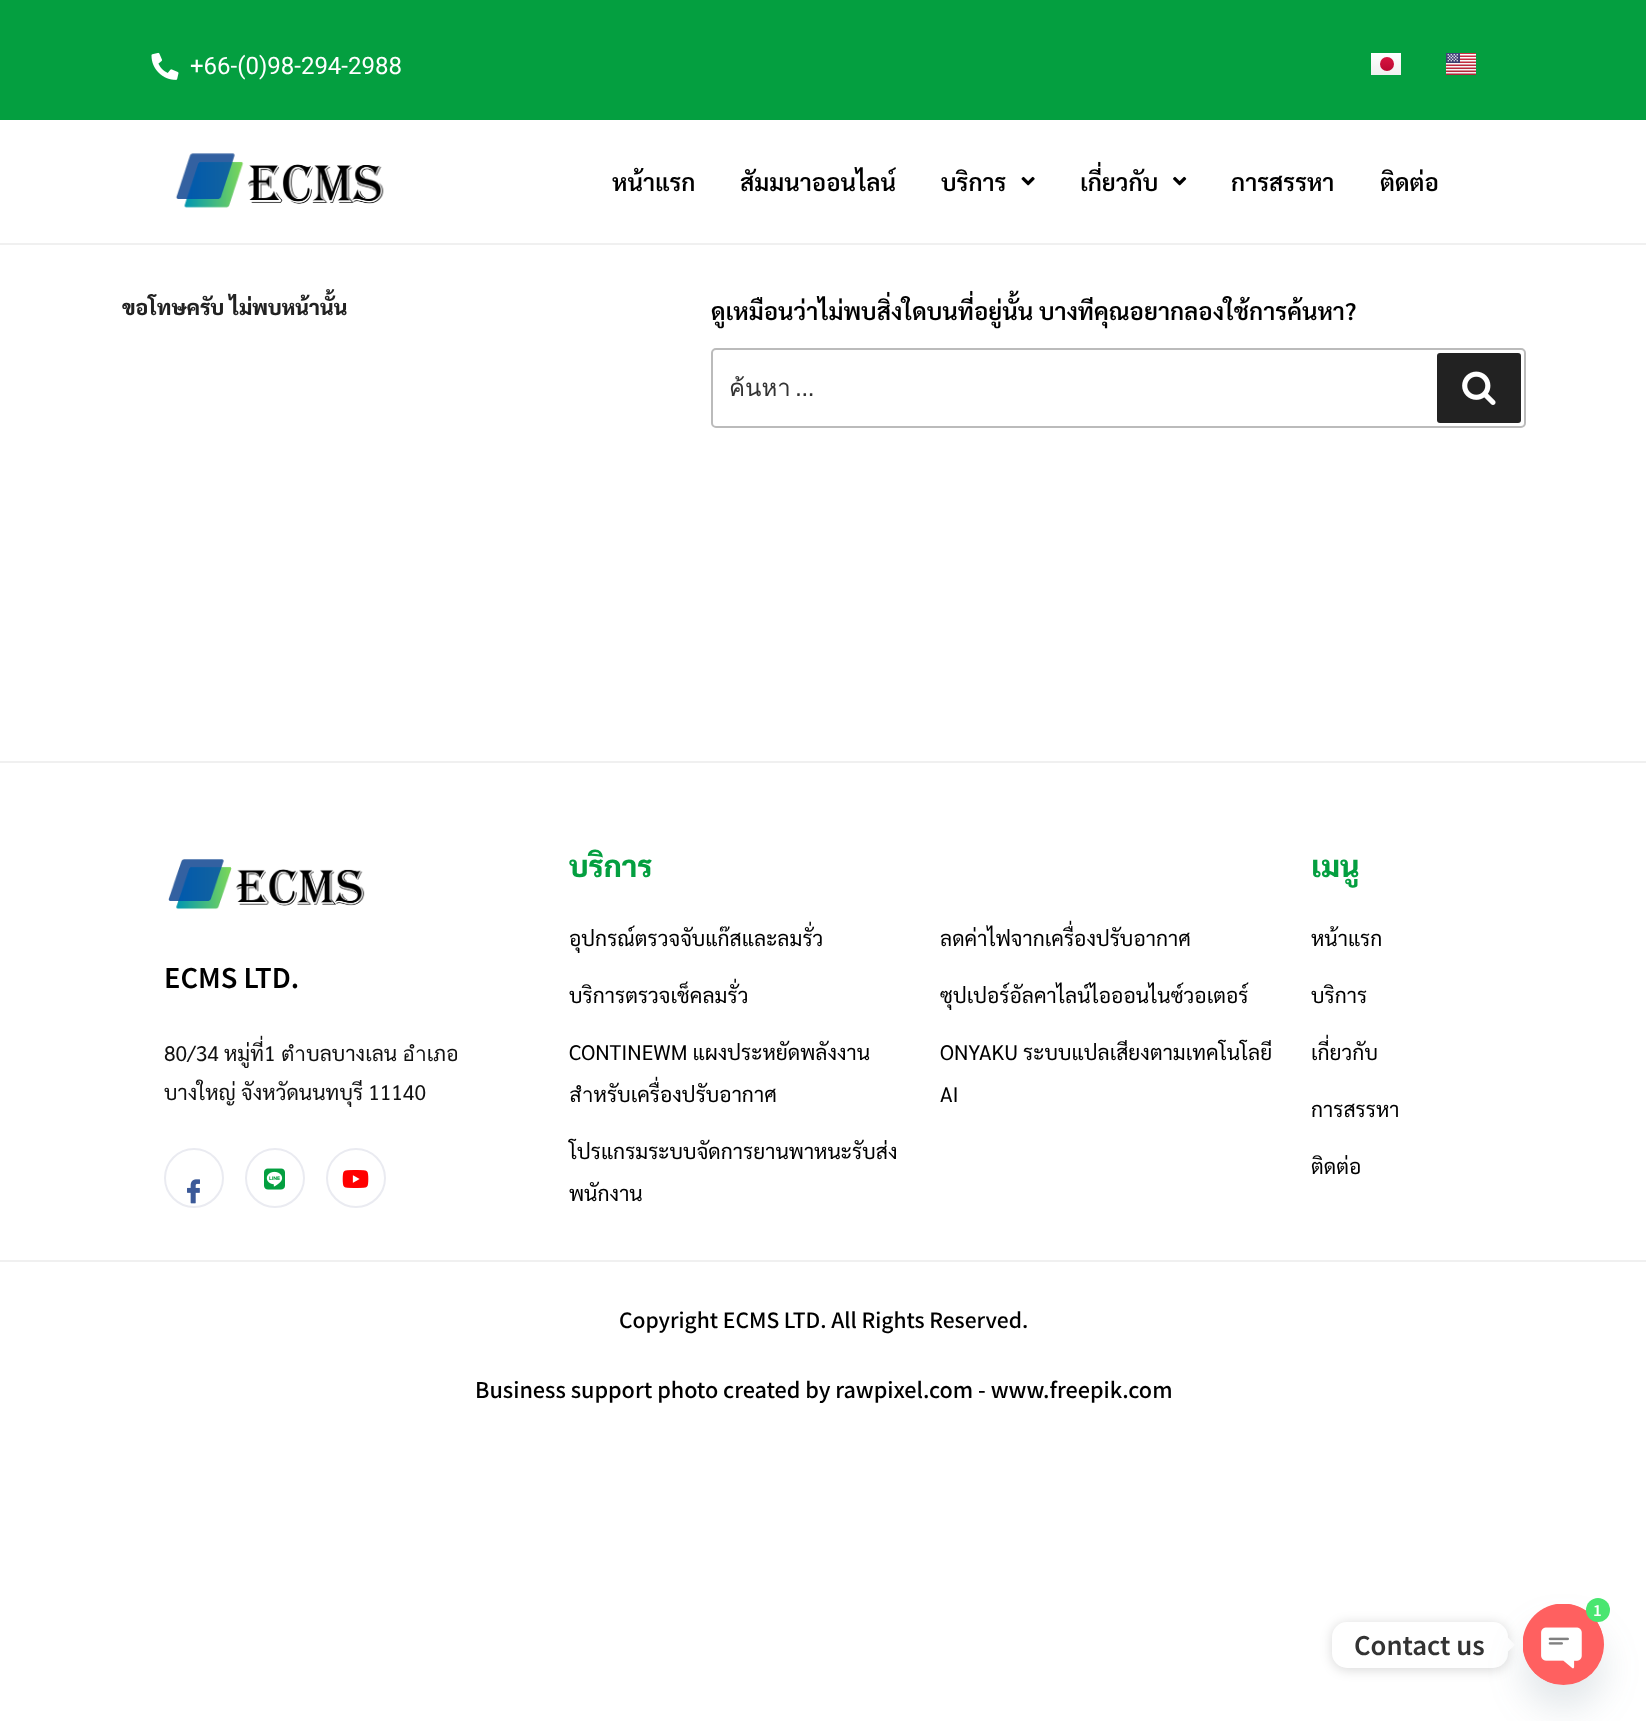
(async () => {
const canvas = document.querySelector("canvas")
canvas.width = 1646
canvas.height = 1721
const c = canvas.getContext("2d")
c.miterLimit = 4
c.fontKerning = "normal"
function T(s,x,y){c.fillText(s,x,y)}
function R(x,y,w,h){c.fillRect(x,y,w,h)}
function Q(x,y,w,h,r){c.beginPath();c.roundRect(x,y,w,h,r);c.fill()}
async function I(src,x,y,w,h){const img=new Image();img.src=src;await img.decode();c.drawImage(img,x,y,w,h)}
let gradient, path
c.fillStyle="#fff"
R(0,0,1646,1721)
c.fillStyle="#049f40"
R(0,0,1646,120)
await I("1.png",151,52,28,28)
c.font="24px Roboto"
c.fillStyle="#fff"
T("+66-(0)98-294-2988",190,74)
gradient = c.createLinearGradient(1387,53,1387,75)
gradient.addColorStop(0,"#fff")
gradient.addColorStop(1,"#f0f0f0")
c.fillStyle = gradient
R(1371,53,30,22)
gradient = c.createLinearGradient(1387,57,1387,71)
gradient.addColorStop(0,"#d81441")
gradient.addColorStop(1,"#bb0831")
c.fillStyle = gradient
c.beginPath()
c.arc(1387,64,7,0,7)
c.fill()
await I("2.png",1446,53,30,22)
c.fillStyle="#f0f0f0"
R(0,243,1646,2)
await I("3.png",175,153,209,55)
c.font="600 24px Sarabun"
c.fillStyle="#000"
T("หน้าแรก",612,191)
T("สัมมนาออนไลน์",740,191)
T("บริการ",941,191)
await I("4.png",1021,176,14,10)
T("เกี่ยวกับ",1080,191)
await I("5.png",1173,176,14,10)
T("การสรรหา",1231,191)
T("ติดต่อ",1380,191)
c.font="800 21px Sarabun"
c.fillStyle="#222"
T("ขอโทษครับ ไม่พบหน้านั้น",122,315)
c.font="600 24px Sarabun"
c.fillStyle="#000"
T("ดูเหมือนว่าไม่พบสิ่งใดบนที่อยู่นั้น บางทีคุณอยากลองใช้การค้นหา?",711,320)
c.beginPath()
c.roundRect(712,349,813,78,4)
c.strokeStyle="#bbb"
c.lineWidth=2
c.stroke()
c.save()
c.beginPath()
c.rect(729,369,773,38)
c.clip()
c.font="24px Loma"
c.fillStyle="#333"
T("ค้นหา",729,396)
c.restore()
c.font="100 24px Libre Franklin"
c.fillStyle="#333"
T("…",796,396)
c.fillStyle="#222"
Q(1437,353,84,70,3)
await I("6.png",1462,371,34,34)
c.fillStyle="#f0f0f0"
R(0,761,1646,2)
await I("7.png",168,859,197,51)
c.font="600 27px Noto Sans JP"
c.fillStyle="#000"
T("ECMS LTD.",164,988)
c.font="21px Sarabun"
c.fillStyle="#111"
T("80/34 หมู่ที่1 ตำบลบางเลน อำเภอ",164,1061)
T("บางใหญ่ จังหวัดนนทบุรี 11140",164,1100)
c.beginPath()
c.arc(194,1178,29,0,7)
c.strokeStyle="#eaebf1"
c.stroke()
await I("8.png",187,1179,13,25)
c.beginPath()
c.arc(275,1178,29,0,7)
c.stroke()
await I("9.png",264,1168,21,22)
c.beginPath()
c.arc(356,1178,29,0,7)
c.stroke()
await I("10.png",342,1170,27,18)
c.font="800 30px Sarabun"
c.fillStyle="#049f40"
T("บริการ",569,877)
c.font="21px Sarabun"
c.fillStyle="#000"
T("อุปกรณ์ตรวจจับแก๊สและลมรั่ว",569,946)
T("บริการตรวจเช็คลมรั่ว",569,1003)
T("CONTINEWM แผงประหยัดพลังงาน",569,1060)
T("สำหรับเครื่องปรับอากาศ",569,1102)
T("โปรแกรมระบบจัดการยานพาหนะรับส่ง",569,1159)
T("พนักงาน",569,1201)
T("ลดค่าไฟจากเครื่องปรับอากาศ",940,946)
T("ซุปเปอร์อัลคาไลน์ไอออนไนซ์วอเตอร์",940,1003)
T("ONYAKU ระบบแปลเสียงตามเทคโนโลยี",940,1060)
T("AI",940,1102)
c.font="800 30px Sarabun"
c.fillStyle="#049f40"
T("เมนู",1311,877)
c.font="21px Sarabun"
c.fillStyle="#000"
T("หน้าแรก",1311,946)
T("บริการ",1311,1003)
T("เกี่ยวกับ",1311,1060)
T("การสรรหา",1311,1117)
T("ติดต่อ",1311,1174)
c.fillStyle="#f0f0f0"
R(0,1260,1646,2)
c.font="500 21px Noto Sans JP"
c.fillStyle="#000"
T("Copyright ECMS LTD. All Rights Reserved.",619,1328)
c.font="500 21.6px Noto Sans JP"
T("Business support photo created by rawpixel.com - www.freepik.com",475,1398)
c.fillStyle="#00000026"
c.filter="blur(6px)"
c.beginPath()
c.roundRect(1332,1623,176,47,15)
c.fill()
c.filter="none"
c.fillStyle="#fff"
Q(1332,1622,176,46,15)
path = new Path2D("M1507.5 1652v-15l7.5 8z")
c.fill(path)
c.fillStyle="#49687e29"
c.filter="blur(18px)"
c.beginPath()
c.roundRect(1523,1628,81,81,40.5)
c.fill()
c.filter="none"
c.fillStyle="#ff6060"
c.beginPath()
c.arc(1563.5,1644.5,40.5,0,7)
c.fill()
await I("11.png",1523,1604,81,80)
c.fillStyle="#49e670"
c.beginPath()
c.arc(1598,1610,12,0,7)
c.fill()
c.font="600 15px Noto Sans JP"
c.fillStyle="#fff"
T("1",1593,1616)
c.font="600 25.5px Noto Sans JP"
c.fillStyle="#333"
T("Contact us",1354,1655)
})()
